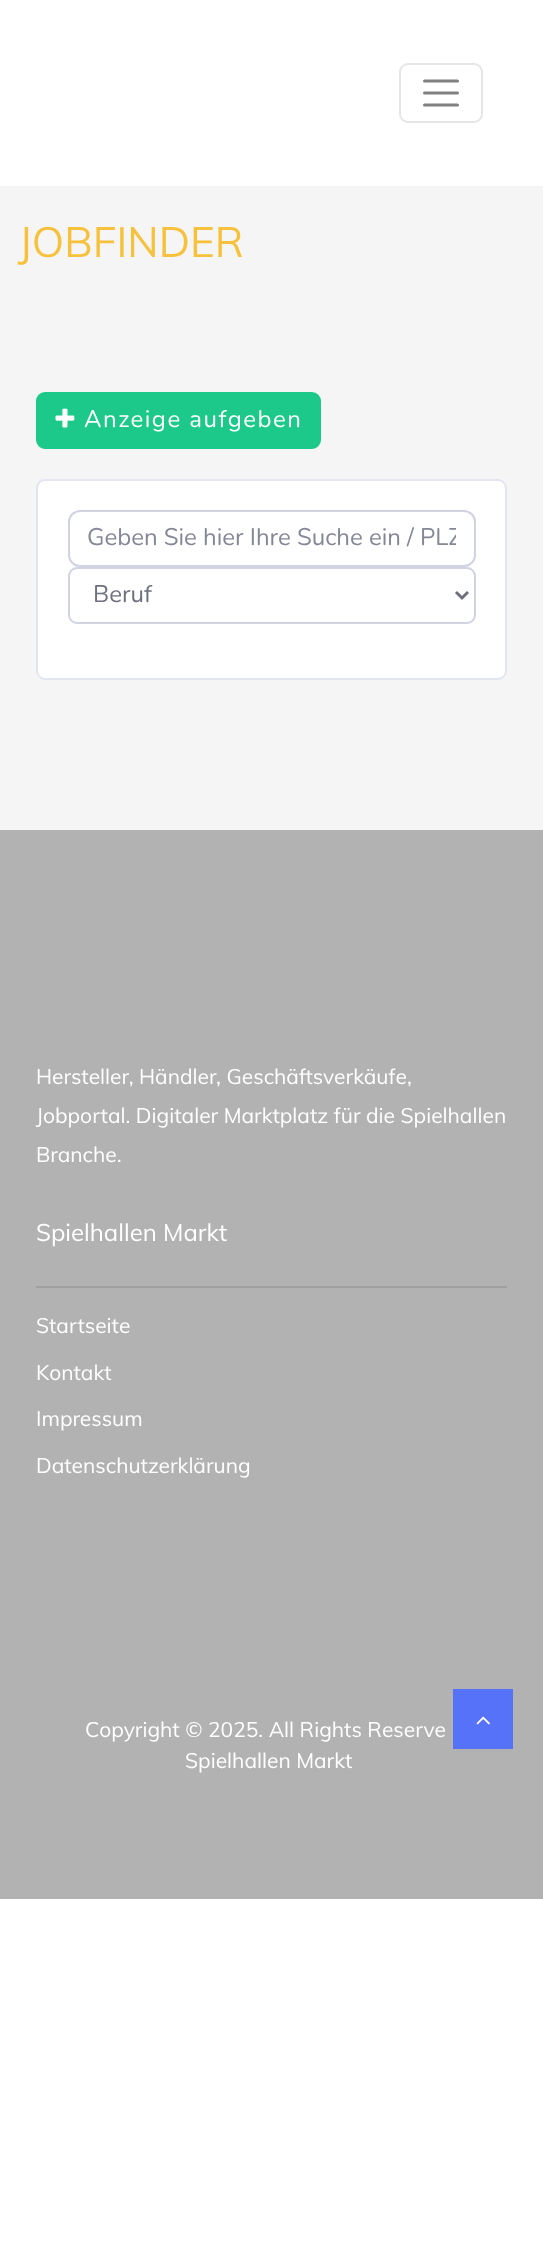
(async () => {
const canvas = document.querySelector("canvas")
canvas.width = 543
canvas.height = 2263
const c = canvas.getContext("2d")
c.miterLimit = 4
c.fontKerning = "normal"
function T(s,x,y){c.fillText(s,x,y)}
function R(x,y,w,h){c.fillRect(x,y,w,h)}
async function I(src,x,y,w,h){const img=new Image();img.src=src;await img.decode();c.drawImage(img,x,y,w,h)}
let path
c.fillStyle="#fff"
R(0,0,543,2263)
c.beginPath()
c.roundRect(400,64,82,58,8)
c.strokeStyle="#e6e6e6"
c.lineWidth=2
c.stroke()
path = new Path2D("M424.5 81h33m-33 12h33m-33 12h33")
c.strokeStyle="#808080"
c.lineWidth=3
c.lineCap="round"
c.stroke(path)
c.fillStyle="#f5f5f5"
R(0,186,543,644)
c.font="42px Muli"
c.fillStyle="#f6c23e"
T("JOBFINDER",18,257)
c.fillStyle="#1cc88a"
c.beginPath()
c.roundRect(37,393,283,55,8)
c.fill()
c.strokeStyle="#1cc88a"
c.lineWidth=2
c.stroke()
await I("1.png",55,408,20,20)
c.letterSpacing="1.5px"
c.font="24px Nunito"
c.fillStyle="#fff"
T("Anzeige aufgeben",84,427)
c.beginPath()
c.roundRect(37,480,469,199,8)
c.fill()
c.strokeStyle="#e3e6f0"
c.stroke()
c.beginPath()
c.roundRect(69,511,406,55,11)
c.strokeStyle="#d1d3e2"
c.stroke()
c.save()
c.beginPath()
c.rect(87,522,369,33)
c.clip()
c.letterSpacing="0px"
c.fillStyle="#858796"
T("Geben Sie hier Ihre Suche ein / PLZ",87,545)
c.restore()
c.beginPath()
c.roundRect(69,568,406,55,8)
c.stroke()
path = new Path2D("M456 592l6 6l6-6")
c.strokeStyle="#6e707e"
c.lineWidth=3
c.lineCap="butt"
c.stroke(path)
c.letterSpacing="0px"
c.fillStyle="#6e707e"
T("Beruf",93,602)
c.fillStyle="#b2b2b2"
R(0,830,543,1069)
c.font="21px Muli"
c.fillStyle="#fff"
T("Hersteller, Händler, Geschäftsverkäufe,",36,1084)
T("Jobportal. Digitaler Marktplatz für die Spielhallen",36,1123)
T("Branche.",36,1162)
c.font="24px Muli"
T("Spielhallen Markt",36,1241)
c.fillStyle="#a0a0a0"
R(36,1286,471,2)
c.font="21px Muli"
c.fillStyle="#fff"
T("Startseite",36,1333)
T("Kontakt",36,1380)
T("Impressum",36,1426)
T("Datenschutzerklärung",36,1473)
T("Copyright © 2025. All Rights Reserve",85,1737)
T("Spielhallen Markt",185,1768)
c.fillStyle="#5672f9"
R(453,1689,60,60)
await I("2.png",476,1716,14,9)
})()
